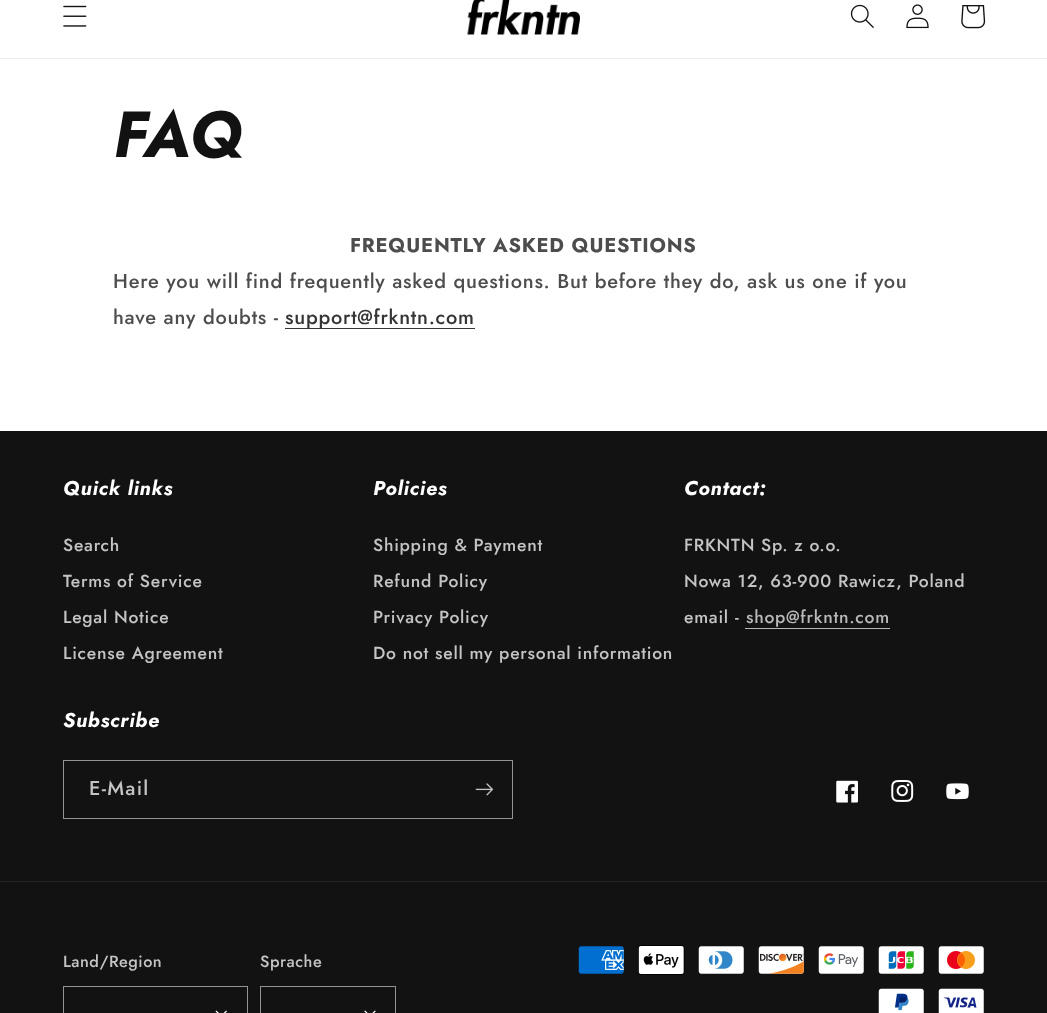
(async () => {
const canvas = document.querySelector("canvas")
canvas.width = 1047
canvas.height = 1013
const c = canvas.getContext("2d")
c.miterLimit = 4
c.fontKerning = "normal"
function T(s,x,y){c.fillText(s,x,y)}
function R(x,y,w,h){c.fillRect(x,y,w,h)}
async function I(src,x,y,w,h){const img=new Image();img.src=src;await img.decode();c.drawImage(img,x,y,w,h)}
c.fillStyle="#fff"
R(0,0,1047,1013)
c.fillStyle="#ececec"
R(0,58,1047,1)
await I("1.png",63,5,24,22)
await I("2.png",467,0,113,35)
await I("3.png",850,4,24,24)
await I("4.png",906,4,23,25)
await I("5.png",961,5,25,24)
c.letterSpacing="0.75px"
c.font="italic bold 65px Jost"
c.fillStyle="#121212"
T("FAQ",113,157)
c.font="bold 20px Jost"
c.fillStyle="#4d4d4d"
T("FREQUENTLY ASKED QUESTIONS",350,252)
c.font="500 20px Jost"
T("Here you will find frequently asked questions. But before they do, ask us one if you",113,288)
T("have any doubts -",113,324)
c.fillStyle="#363636"
R(285,328,190,1)
c.fillStyle="#353535"
T("support@frkntn.com",285,324)
c.fillStyle="#121212"
R(0,431,1047,582)
c.font="italic bold 20px Jost"
c.fillStyle="#fff"
T("Quick links",63,495)
c.font="500 17.5px Jost"
c.fillStyle="#c4c4c4"
T("Search",63,551)
T("Terms of Service",63,587)
T("Legal Notice",63,623)
T("License Agreement",63,659)
c.font="italic bold 20px Jost"
c.fillStyle="#fff"
T("Policies",373,495)
c.font="500 17.5px Jost"
c.fillStyle="#c4c4c4"
T("Shipping & Payment",373,551)
T("Refund Policy",373,587)
T("Privacy Policy",373,623)
T("Do not sell my personal information",373,659)
c.font="italic bold 20px Jost"
c.fillStyle="#fff"
T("Contact:",684,495)
c.font="500 17.5px Jost"
c.fillStyle="#c4c4c4"
T("FRKNTN Sp. z o.o.",684,551)
T("Nowa 12, 63-900 Rawicz, Poland",684,587)
T("email -",684,623)
c.fillStyle="#b8b8b8"
T("shop@frkntn.com",746,623)
R(745,628,145,1)
c.font="italic bold 20px Jost"
c.fillStyle="#fff"
T("Subscribe",63,727)
c.strokeStyle="#949494"
c.strokeRect(63.5,760.5,449,58)
c.letterSpacing="1.25px"
c.font="500 20px Jost"
c.fillStyle="#c4c4c4"
T("E-Mail",89,795)
await I("6.png",475,783,18,13)
await I("7.png",836,780,22,23)
await I("8.png",891,780,23,22)
await I("9.png",946,783,23,17)
c.fillStyle="#252525"
R(0,881,1047,1)
c.letterSpacing="0.5px"
c.font="500 16.25px Jost"
c.fillStyle="#c4c4c4"
T("Land/Region",63,967)
await I("10.png",215,1010,12,3)
c.strokeRect(63.5,986.5,184,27)
T("Sprache",260,967)
await I("11.png",364,1010,12,3)
c.strokeRect(260.5,986.5,135,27)
await I("12.png",578,946,46,28)
await I("13.png",638,945,47,30)
await I("14.png",698,946,46,28)
await I("15.png",758,946,46,28)
await I("16.png",818,946,46,28)
await I("17.png",878,946,46,28)
await I("18.png",938,946,46,28)
await I("19.png",878,988,46,25)
await I("20.png",938,988,46,25)
})()
